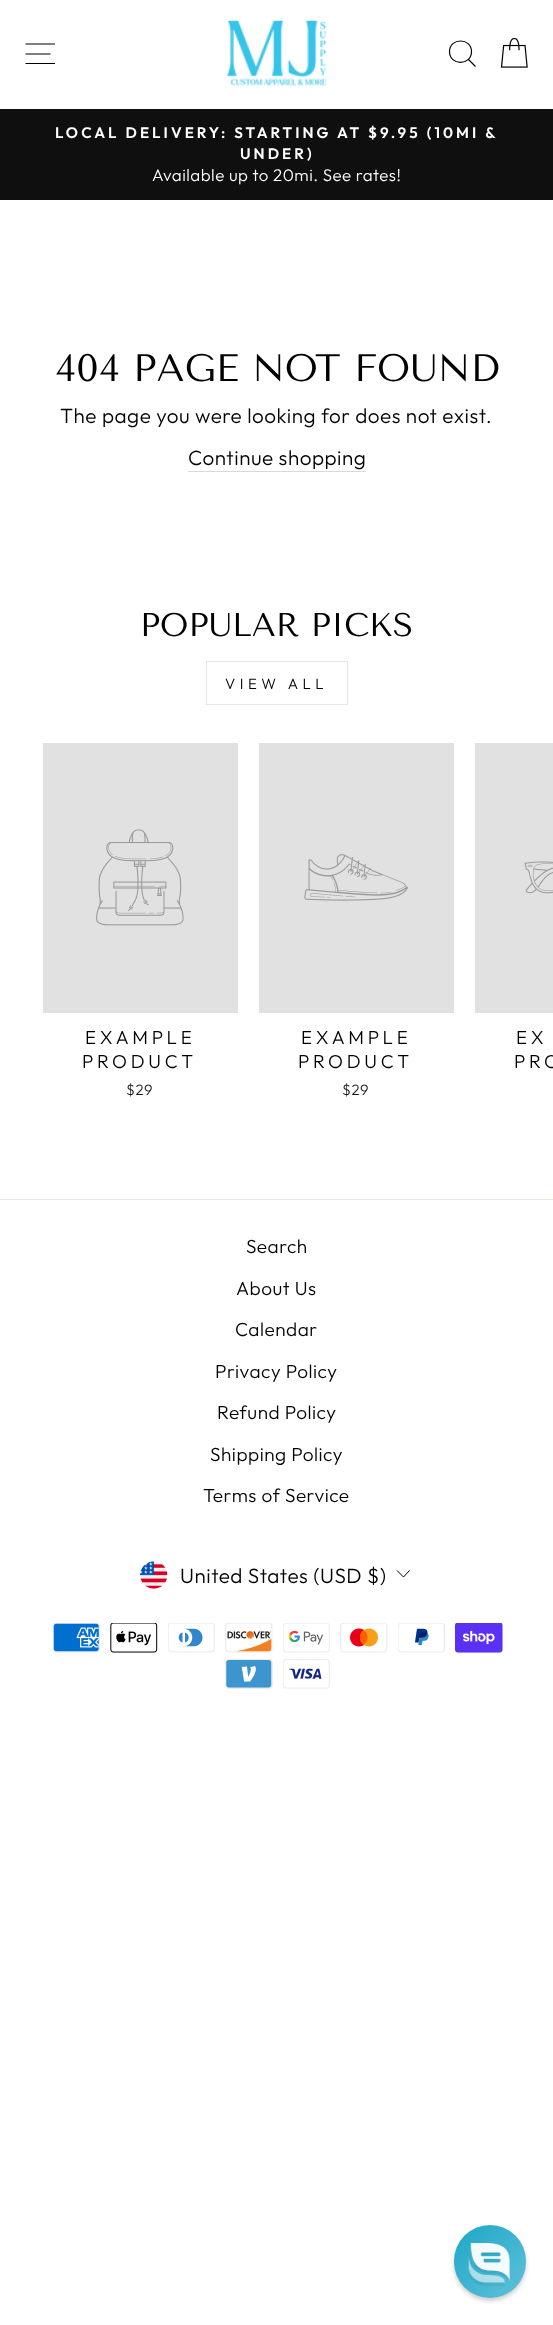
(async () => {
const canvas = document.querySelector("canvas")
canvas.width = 553
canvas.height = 2325
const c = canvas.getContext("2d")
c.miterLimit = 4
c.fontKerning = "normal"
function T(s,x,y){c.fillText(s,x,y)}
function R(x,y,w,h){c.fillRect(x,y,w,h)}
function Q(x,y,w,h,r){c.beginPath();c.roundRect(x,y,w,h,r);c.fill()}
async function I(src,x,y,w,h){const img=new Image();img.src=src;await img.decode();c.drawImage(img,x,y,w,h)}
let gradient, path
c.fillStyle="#fff"
R(0,0,553,2325)
c.fillStyle="#0f0f0f"
R(0,109,553,91)
c.fillStyle="#00000033"
c.filter="blur(0.5px)"
c.beginPath()
c.rect(0,0,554,109)
c.fill()
c.filter="none"
c.fillStyle="#fff"
R(0,0,553,109)
path = new Path2D("M25.5 44h29.5m-29.5 10h25m-25 9.5h29.5")
c.strokeStyle="#000"
c.lineWidth=1.2
c.stroke(path)
await I("1.png",227,20,100,66)
path = new Path2D("M471.5 51.5c0 14.5-22 14.5-22 0c0-14 22-14 22 0zm4 15l-7-7")
c.stroke(path)
await I("2.png",500,37,28,31)
c.letterSpacing="3.05px"
c.font="600 15.2px Outfit"
T("LOCAL DELIVERY: STARTING AT $9.95 (10MI &",55,138)
T("UNDER)",240,159)
c.letterSpacing="0.5px"
c.font="300 16.9px Outfit"
T("Available up to 20mi. See rates!",152,181)
c.letterSpacing="0px"
c.font="38.25px Tenor Sans"
c.fillStyle="#000"
T("404 PAGE NOT FOUND",55,381)
c.letterSpacing="0.5px"
c.font="300 20.7px Outfit"
T("The page you were looking for does not exist.",60,423)
c.fillStyle="#d9d9d9"
R(188,471,178,1)
c.fillStyle="#000"
T("Continue shopping",188,465)
c.letterSpacing="0px"
c.font="32.75px Tenor Sans"
T("POPULAR PICKS",140,636)
c.strokeStyle="#e8e8e1"
c.lineWidth=1
c.strokeRect(206.5,661.5,141,43)
c.letterSpacing="4.5px"
c.font="300 15px Outfit"
T("VIEW ALL",225,689)
c.fillStyle="#e1e1e1"
R(43,743,195,270)
await I("3.png",96,829,88,97)
c.letterSpacing="3.75px"
c.font="300 18.75px Outfit"
c.fillStyle="#000"
T("EXAMPLE",85,1044)
T("PRODUCT",82,1068)
c.letterSpacing="0.5px"
c.font="300 15px Outfit"
c.fillStyle="#1c1d1d"
T("$29",126,1095)
c.fillStyle="#e1e1e1"
R(259,743,195,270)
await I("4.png",304,854,104,47)
c.letterSpacing="3.75px"
c.font="300 18.75px Outfit"
c.fillStyle="#000"
T("EXAMPLE",301,1044)
T("PRODUCT",298,1068)
c.letterSpacing="0.5px"
c.font="300 15px Outfit"
c.fillStyle="#1c1d1d"
T("$29",342,1095)
c.fillStyle="#e1e1e1"
R(475,743,78,270)
await I("5.png",524,861,29,33)
c.letterSpacing="3.75px"
c.font="300 18.75px Outfit"
c.fillStyle="#000"
T("EX",516,1044)
T("PRO",514,1068)
c.fillStyle="#e8e8e1"
R(0,1199,553,1)
c.letterSpacing="0.5px"
c.font="300 19px Outfit"
c.fillStyle="#000"
T("Search",246,1253)
T("About Us",236,1295)
T("Calendar",235,1336)
T("Privacy Policy",215,1378)
T("Refund Policy",217,1419)
T("Shipping Policy",210,1461)
T("Terms of Service",203,1502)
await I("6.png",140,1561,28,28)
c.font="300 20.7px Outfit"
T("United States (USD $)",180,1583)
path = new Path2D("M397 1570.5l6.5 6.5l6-6.5")
c.strokeStyle="#000"
c.stroke(path)
await I("7.png",53,1623,47,30)
await I("8.png",110,1623,48,30)
await I("9.png",168,1623,47,30)
await I("10.png",225,1623,48,30)
await I("11.png",283,1623,47,30)
await I("12.png",340,1623,48,30)
await I("13.png",398,1623,47,30)
await I("14.png",455,1623,48,30)
await I("15.png",225,1659,48,30)
await I("16.png",283,1659,47,30)
c.fillStyle="#0d0d0d33"
c.filter="blur(2px)"
c.beginPath()
c.roundRect(454,2229,72,72,36)
c.fill()
c.filter="none"
gradient = c.createLinearGradient(454,2225,526,2298)
gradient.addColorStop(0,"#1ca7c8")
gradient.addColorStop(1,"#60c1d8")
c.fillStyle = gradient
Q(454,2225,72,73,36)
await I("17.png",467,2243,43,43)
})()
